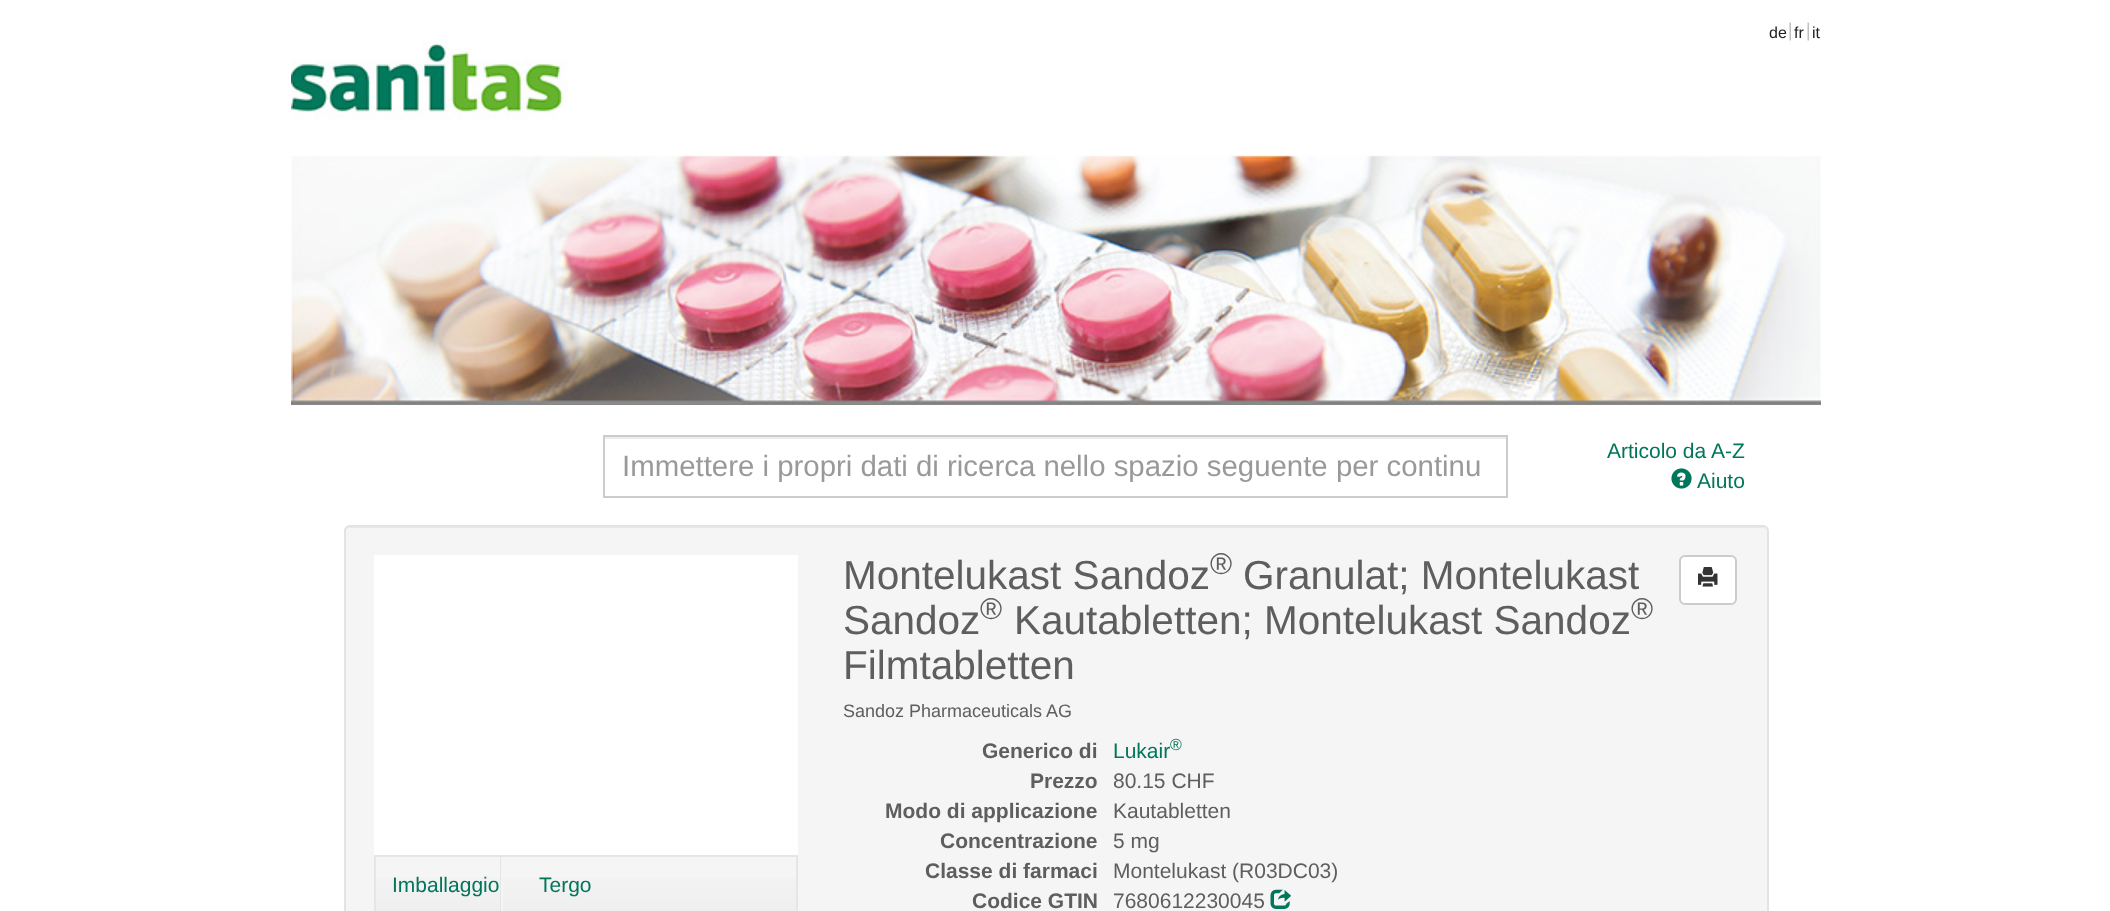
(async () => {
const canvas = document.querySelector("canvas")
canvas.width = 2110
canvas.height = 911
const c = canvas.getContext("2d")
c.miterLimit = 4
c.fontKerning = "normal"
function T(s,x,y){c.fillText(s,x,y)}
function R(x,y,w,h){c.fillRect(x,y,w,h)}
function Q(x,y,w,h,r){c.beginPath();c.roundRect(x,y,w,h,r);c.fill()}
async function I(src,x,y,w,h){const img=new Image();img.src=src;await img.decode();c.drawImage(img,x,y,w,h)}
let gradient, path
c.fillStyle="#fff"
R(0,0,2110,911)
await I("1.png",291,39,1530,366)
c.font="16px Liberation Sans"
c.fillStyle="#222"
T("de",1769,38)
await I("2.png",1789,22,2,19)
T("fr",1794,38)
await I("2.png",1807,22,2,19)
T("it",1812,38)
c.fillStyle="#ececec"
R(605,437,901,2)
c.strokeStyle="#ccc"
c.lineWidth=2
c.strokeRect(604,436,903,61)
c.font="29.4px Liberation Sans"
c.fillStyle="#999"
T("Immettere i propri dati di ricerca nello spazio seguente per continu",622,476)
c.font="21px Liberation Sans"
c.fillStyle="#00765a"
T("Articolo da A-Z",1607,458)
await I("3.png",1671,468,21,21)
T("Aiuto",1697,488)
c.fillStyle="#f5f5f5"
Q(344,525,1425,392,6)
c.fillStyle="#e9e9e9"
path = new Path2D("M350 528h1412c3 0 5 2 5 4c0-3-2-5-5-5h-1412c-3 0-5 2-5 5c0-2 2-4 5-4z")
c.fill(path)
c.beginPath()
c.roundRect(345,526,1423,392,5)
c.strokeStyle="#e3e3e3"
c.stroke()
c.fillStyle="#fff"
R(374,555,424,300)
gradient = c.createLinearGradient(586,857,586,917)
gradient.addColorStop(0,"#f5f5f5")
gradient.addColorStop(1,"#eee")
c.fillStyle = gradient
R(376,878,420,33)
c.strokeStyle="#e5e5e5"
c.strokeRect(375,856,422,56)
c.fillStyle="#e5e5e5"
R(500,857,1,54)
c.fillStyle="#00765a"
T("Imballaggio",392,892)
c.fillStyle="#f5f5f5"
R(501,878,2,33)
c.fillStyle="#00765a"
T("Tergo",539,892)
c.font="40.5px Liberation Sans"
c.fillStyle="#5e5e5e"
T("Montelukast Sandoz",843,589)
c.font="30px Liberation Sans"
T("®",1210,574)
c.font="40.5px Liberation Sans"
T("Granulat; Montelukast",1243,589)
T("Sandoz",843,634)
c.font="30px Liberation Sans"
T("®",980,619)
c.font="40.5px Liberation Sans"
T("Kautabletten; Montelukast Sandoz",1014,634)
c.font="30px Liberation Sans"
T("®",1631,619)
c.font="40.5px Liberation Sans"
T("Filmtabletten",843,679)
c.fillStyle="#fff"
c.beginPath()
c.roundRect(1680,556,56,48,5)
c.fill()
c.strokeStyle="#ccc"
c.stroke()
await I("4.png",1698,567,20,20)
c.font="18px Liberation Sans"
c.fillStyle="#5e5e5e"
T("Sandoz Pharmaceuticals AG",843,717)
c.font="bold 21px Liberation Sans"
T("Generico di",982,758)
c.font="21px Liberation Sans"
c.fillStyle="#00765a"
T("Lukair",1113,758)
c.font="16px Liberation Sans"
T("®",1170,750)
c.font="bold 21px Liberation Sans"
c.fillStyle="#5e5e5e"
T("Prezzo",1030,788)
c.font="21px Liberation Sans"
T("80.15 CHF",1113,788)
c.font="bold 21px Liberation Sans"
T("Modo di applicazione",885,818)
c.font="21px Liberation Sans"
T("Kautabletten",1113,818)
c.font="bold 21px Liberation Sans"
T("Concentrazione",940,848)
c.font="21px Liberation Sans"
T("5 mg",1113,848)
c.font="bold 21px Liberation Sans"
T("Classe di farmaci",925,878)
c.font="21px Liberation Sans"
T("Montelukast (R03DC03)",1113,878)
c.font="bold 21px Liberation Sans"
T("Codice GTIN",972,908)
c.font="21px Liberation Sans"
T("7680612230045",1113,908)
await I("5.png",1270,889,21,20)
})()
